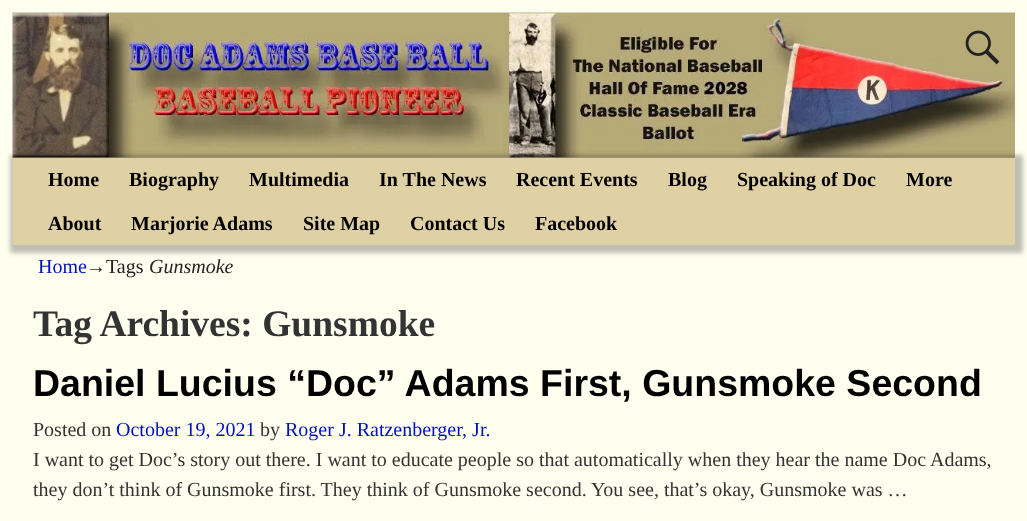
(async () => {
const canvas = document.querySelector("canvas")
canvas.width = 1027
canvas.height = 521
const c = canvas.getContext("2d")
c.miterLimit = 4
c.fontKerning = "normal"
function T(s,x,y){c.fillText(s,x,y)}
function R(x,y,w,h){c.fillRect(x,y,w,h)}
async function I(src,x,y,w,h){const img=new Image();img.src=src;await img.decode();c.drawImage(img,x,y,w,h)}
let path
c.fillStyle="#fffff0"
R(0,0,1027,521)
c.fillStyle="#e0d1a5"
R(13,157,1002,88)
await I("1.png",12,12,1003,146)
await I("2.png",965,30,35,35)
c.save()
path = new Path2D("M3 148h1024v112h-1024zm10 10h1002v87h-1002z")
c.clip(path,"evenodd")
c.fillStyle="#00000040"
c.filter="blur(2px)"
c.beginPath()
c.rect(10,155,1013,98)
c.fill()
c.filter="none"
c.restore()
c.font="bold 20px Liberation Serif"
c.fillStyle="#000"
T("Home",48,186)
T("Biography",129,186)
T("Multimedia",249,186)
T("In The News",379,186)
T("Recent Events",516,186)
T("Blog",668,186)
T("Speaking of Doc",737,186)
T("More",906,186)
T("About",48,230)
T("Marjorie Adams",131,230)
T("Site Map",303,230)
T("Contact Us",410,230)
T("Facebook",535,230)
c.font="20px Liberation Serif"
c.fillStyle="#01b"
T("Home",38,273)
c.fillStyle="#222"
T("→Tags",86,273)
c.font="italic 20px Liberation Serif"
T("Gunsmoke",149,273)
c.font="bold 37.5px Liberation Serif"
c.fillStyle="#333"
T("Tag Archives: Gunsmoke",33,336)
c.font="bold 37.5px Liberation Sans"
c.fillStyle="#000"
T("Daniel Lucius “Doc” Adams First, Gunsmoke Second",33,396)
c.font="20px Liberation Serif"
c.fillStyle="#333"
T("Posted on",33,436)
c.fillStyle="#01b"
T("October 19, 2021",116,436)
c.fillStyle="#333"
T("by",260,436)
c.fillStyle="#01b"
T("Roger J. Ratzenberger, Jr.",285,436)
c.fillStyle="#333"
T("I want to get Doc’s story out there. I want to educate people so that automatically when they hear the name Doc Adams,",33,466)
T("they don’t think of Gunsmoke first. They think of Gunsmoke second. You see, that’s okay, Gunsmoke was …",33,496)
})()
